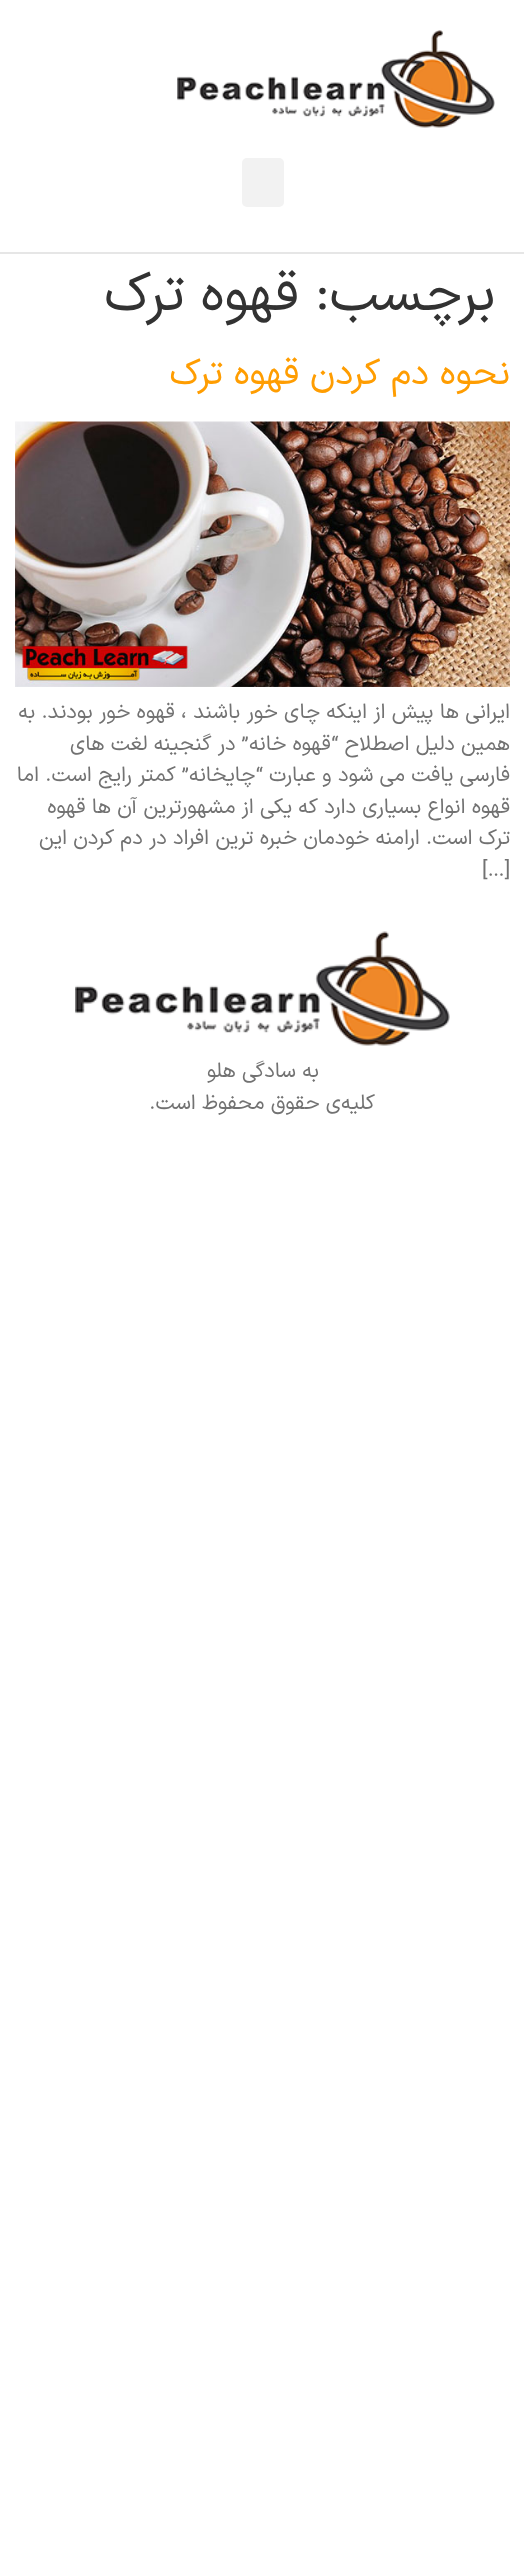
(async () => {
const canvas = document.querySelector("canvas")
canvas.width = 524
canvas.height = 2571
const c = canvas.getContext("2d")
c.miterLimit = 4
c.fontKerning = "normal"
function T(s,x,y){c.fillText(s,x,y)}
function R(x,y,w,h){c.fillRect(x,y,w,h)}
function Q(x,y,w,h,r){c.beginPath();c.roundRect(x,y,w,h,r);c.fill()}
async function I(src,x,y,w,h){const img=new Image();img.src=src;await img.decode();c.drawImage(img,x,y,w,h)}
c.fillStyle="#fff"
R(0,0,524,2571)
c.fillStyle="#e6e6e6"
R(0,252,524,2)
await I("1.png",177,30,318,98)
c.fillStyle="#f2f2f2"
Q(242,158,42,49,5)
c.direction="rtl"
c.font="54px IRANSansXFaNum"
c.fillStyle="#323232"
T("برچسب:",495,310)
T("قهوه ترک",299,310)
c.font="36px IRANSansXFaNum"
c.fillStyle="#ff9d01"
T("نحوه دم کردن قهوه ترک",510,384)
await I("2.png",15,421,495,266)
c.font="21px IRANSansXFaNum"
c.fillStyle="#727272"
T("ایرانی ها پیش از اینکه چای خور باشند ، قهوه خور بودند. به",510,718)
T("همین دلیل اصطلاح “قهوه خانه” در گنجینه لغت های",510,750)
T("فارسی یافت می شود و عبارت “چایخانه” کمتر رایج است. اما",510,781)
T("قهوه انواع بسیاری دارد که یکی از مشهورترین آن ها قهوه",510,813)
T("ترک است. ارامنه خودمان خبره ترین افراد در دم کردن این",510,844)
c.direction="ltr"
T("[…]",482,876)
await I("3.png",75,931,375,115)
c.direction="rtl"
T("به سادگی هلو",319,1077)
T("کلیه‌ی حقوق محفوظ است.",375,1109)
})()
